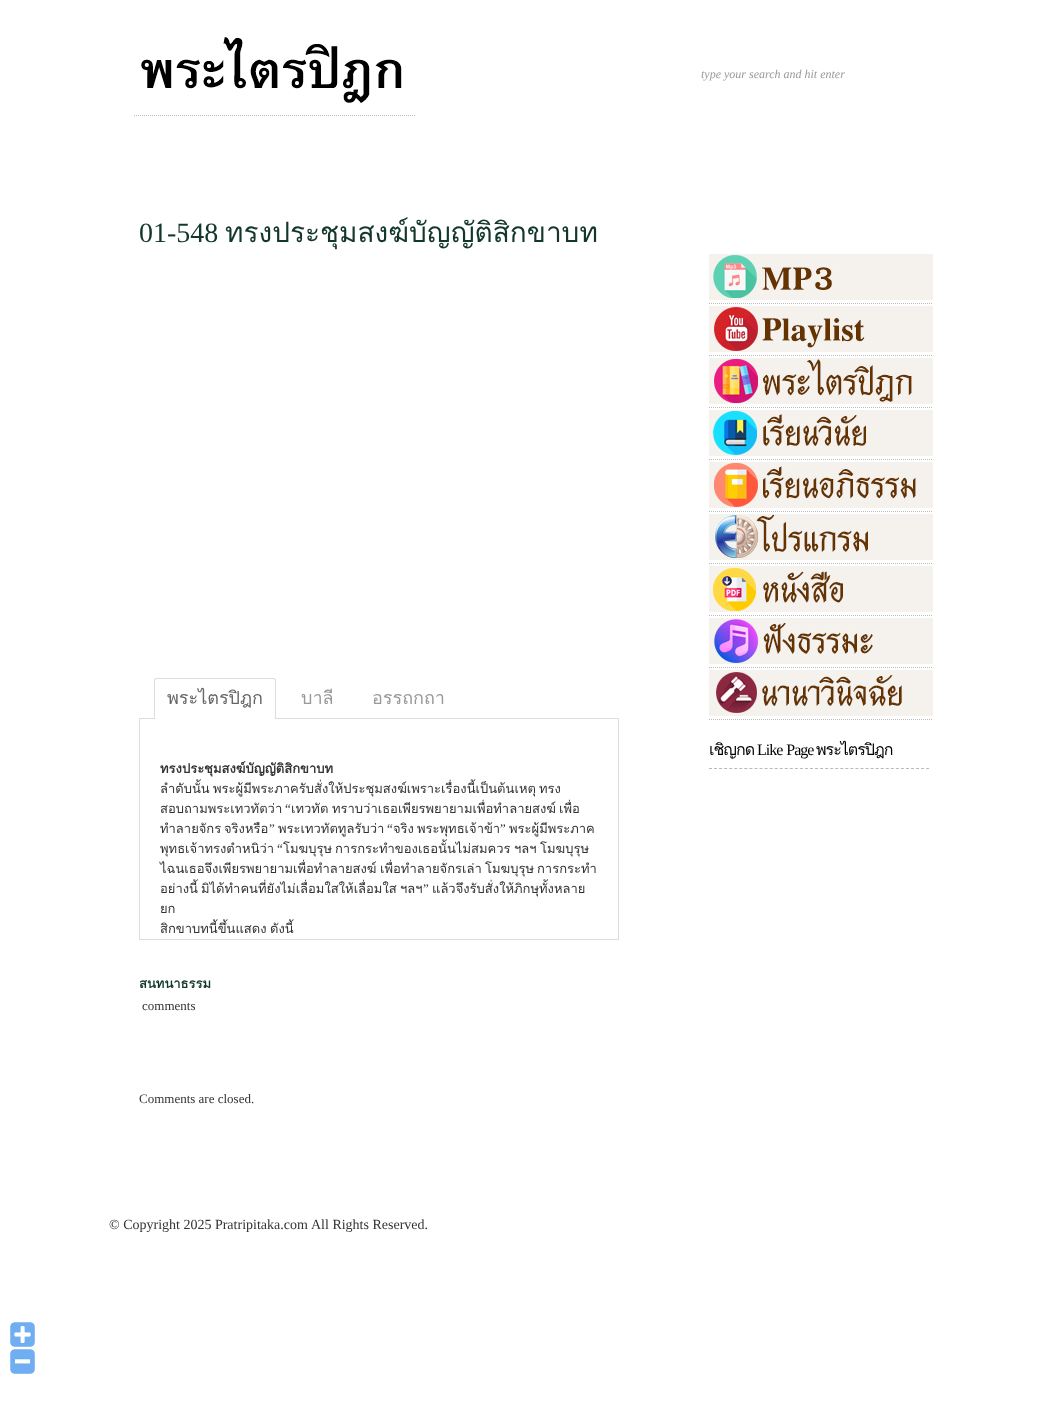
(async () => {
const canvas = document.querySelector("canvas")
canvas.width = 1040
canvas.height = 1415
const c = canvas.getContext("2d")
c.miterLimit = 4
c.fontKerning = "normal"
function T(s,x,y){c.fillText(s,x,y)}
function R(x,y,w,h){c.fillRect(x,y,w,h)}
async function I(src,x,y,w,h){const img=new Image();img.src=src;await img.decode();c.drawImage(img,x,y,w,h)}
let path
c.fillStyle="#fff"
R(0,0,1040,1415)
await I("1.png",141,37,261,66)
c.font="italic 12px Liberation Serif"
c.fillStyle="#999"
T("type your search and hit enter",701,78)
path = new Path2D("M134 115.5h281")
c.strokeStyle="#bbb"
c.setLineDash([1,1])
c.stroke(path)
c.font="28px Liberation Serif"
c.fillStyle="#13382a"
T("01-548",139,242)
c.font="28px Loma"
T("ทรงประชุมสงฆ์บัญญัติสิกขาบท",225,242)
c.strokeStyle="#ddd"
c.setLineDash([])
c.strokeRect(139.5,718.5,479,221)
c.fillStyle="#fff"
c.beginPath()
c.roundRect(154,678,122,41,[3,3,0,0])
c.fill()
c.fillStyle="#ddd"
path = new Path2D("M157 678h116c2 0 3 1 3 3v38h-122v-38c0-2 1-3 3-3zm0 1h116c1 0 2 1 2 2v38h-120v-38c0-1 1-2 2-2z")
c.fill(path,"evenodd")
c.font="18px Loma"
c.fillStyle="#666"
T("พระไตรปิฎก",167,704)
c.fillStyle="#999"
T("บาลี",301,704)
T("อรรถกถา",372,704)
c.font="bold 13px Loma"
c.fillStyle="#333"
T("ทรงประชุมสงฆ์บัญญัติสิกขาบท",160,773)
c.font="13px Loma"
T("ลำดับนั้น",160,793)
T("พระผู้มีพระภาครับสั่งให้ประชุมสงฆ์เพราะเรื่องนี้เป็นต้นเหตุ",213,793)
T("ทรง",539,793)
T("สอบถามพระเทวทัตว่า",160,813)
c.font="13px Liberation Serif"
T("“",285,813)
c.font="13px Loma"
T("เทวทัต",291,813)
T("ทราบว่าเธอเพียรพยายามเพื่อทำลายสงฆ์",332,813)
T("เพื่อ",559,813)
T("ทำลายจักร",160,833)
T("จริงหรือ",224,833)
c.font="13px Liberation Serif"
T("”",269,833)
c.font="13px Loma"
T("พระเทวทัตทูลรับว่า",278,833)
c.font="13px Liberation Serif"
T("“",387,833)
c.font="13px Loma"
T("จริง",393,833)
T("พระพุทธเจ้าข้า",417,833)
c.font="13px Liberation Serif"
T("”",500,833)
c.font="13px Loma"
T("พระผู้มีพระภาค",509,833)
T("พุทธเจ้าทรงตำหนิว่า",160,853)
c.font="13px Liberation Serif"
T("“",277,853)
c.font="13px Loma"
T("โมฆบุรุษ",283,853)
T("การกระทำของเธอนั้นไม่สมควร",335,853)
T("ฯลฯ",514,853)
T("โมฆบุรุษ",540,853)
T("ไฉนเธอจึงเพียรพยายามเพื่อทำลายสงฆ์",160,873)
T("เพื่อทำลายจักรเล่า",380,873)
T("โมฆบุรุษ",485,873)
T("การกระทำ",537,873)
T("อย่างนี้",160,893)
T("มิได้ทำคนที่ยังไม่เลื่อมใสให้เลื่อมใส",201,893)
T("ฯลฯ",400,893)
c.font="13px Liberation Serif"
T("”",423,893)
c.font="13px Loma"
T("แล้วจึงรับสั่งให้ภิกษุทั้งหลาย",432,893)
T("ยก",160,913)
T("สิกขาบทนี้ขึ้นแสดง",160,933)
T("ดังนี้",270,933)
c.font="bold 13px Loma"
c.fillStyle="#13382a"
T("สนทนาธรรม",139,988)
c.font="13px Liberation Serif"
c.fillStyle="#333"
T("comments",142,1010)
T("Comments are closed.",139,1103)
await I("2.png",709,254,224,46)
path = new Path2D("M709 303.5h224")
c.strokeStyle="#bbb"
c.setLineDash([1,1])
c.stroke(path)
await I("3.png",709,306,224,46)
path = new Path2D("M709 355.5h224")
c.stroke(path)
await I("4.png",709,358,224,46)
path = new Path2D("M709 407.5h224")
c.stroke(path)
await I("5.png",709,410,224,46)
path = new Path2D("M709 459.5h224")
c.stroke(path)
await I("6.png",709,462,224,46)
path = new Path2D("M709 511.5h224")
c.stroke(path)
await I("7.png",709,514,224,46)
path = new Path2D("M709 563.5h224")
c.stroke(path)
await I("8.png",709,566,224,46)
path = new Path2D("M709 615.5h224")
c.stroke(path)
await I("9.png",709,618,224,46)
path = new Path2D("M709 667.5h224")
c.stroke(path)
await I("10.png",709,670,224,46)
path = new Path2D("M709 719.5h224")
c.stroke(path)
path = new Path2D("M709 768.5h220")
c.strokeStyle="#b9b9b5"
c.setLineDash([3,2.05])
c.stroke(path)
c.letterSpacing="-1px"
c.font="16px Loma"
c.fillStyle="#000"
T("เชิญกด",709,755)
c.wordSpacing="1px"
c.font="16px Liberation Serif"
T("Like Page",757,755)
c.wordSpacing="0px"
c.font="16px Loma"
T("พระไตรปิฎก",816,755)
c.letterSpacing="0px"
c.font="14px Liberation Serif"
c.fillStyle="#333"
T("© Copyright 2025 Pratripitaka.com",109,1229)
T("All Rights Reserved.",311,1229)
await I("11.png",10,1322,25,25)
await I("12.png",10,1349,25,25)
})()
